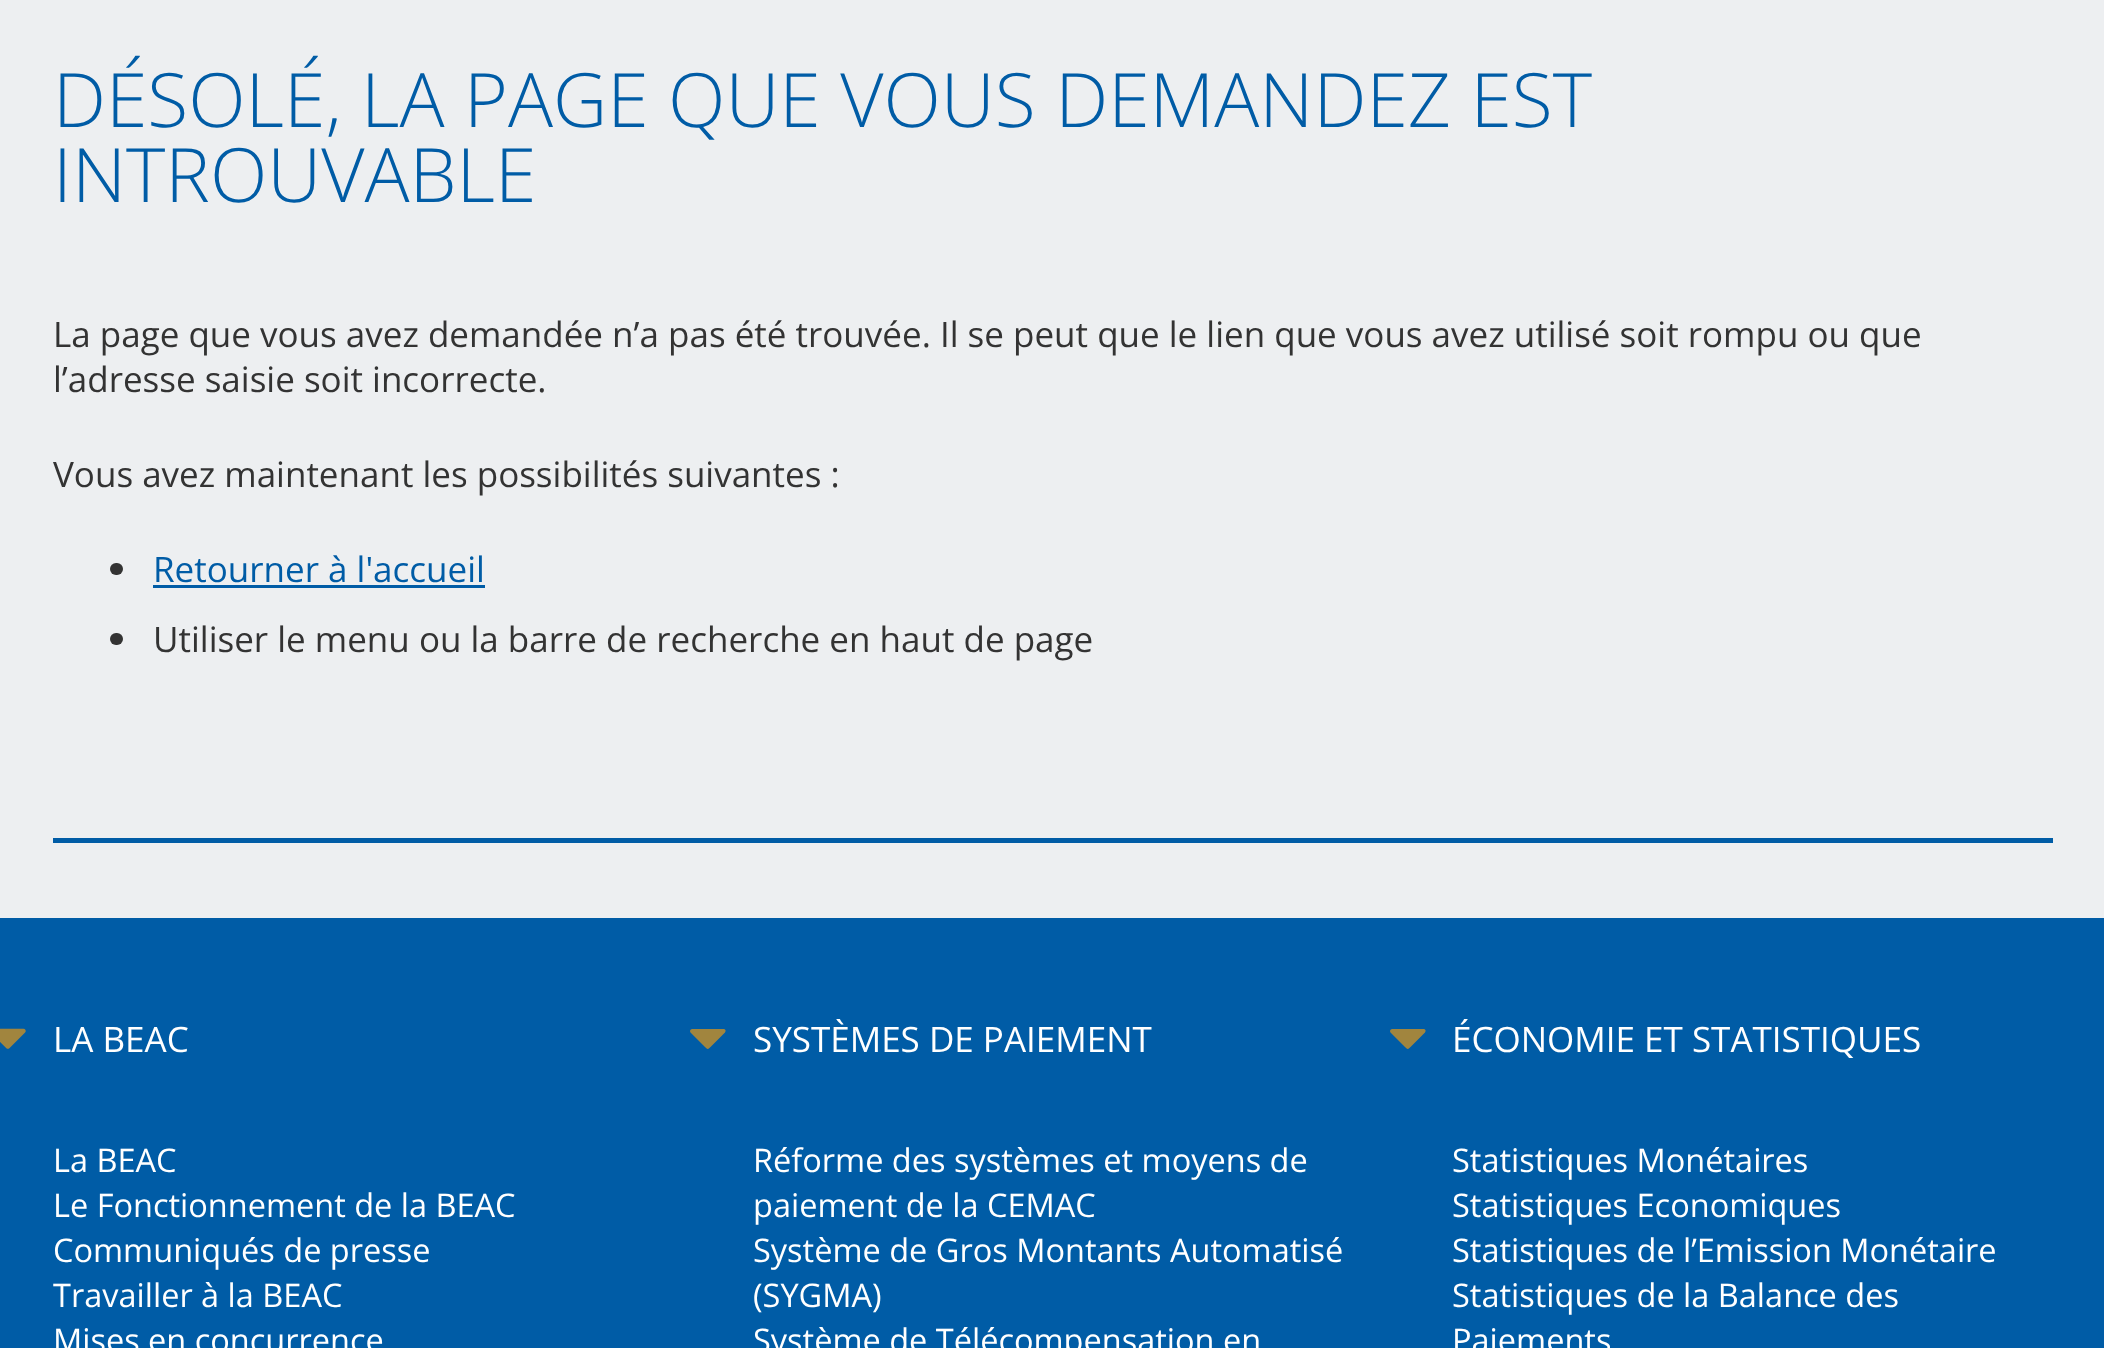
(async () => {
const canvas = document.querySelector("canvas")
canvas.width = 2104
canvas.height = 1348
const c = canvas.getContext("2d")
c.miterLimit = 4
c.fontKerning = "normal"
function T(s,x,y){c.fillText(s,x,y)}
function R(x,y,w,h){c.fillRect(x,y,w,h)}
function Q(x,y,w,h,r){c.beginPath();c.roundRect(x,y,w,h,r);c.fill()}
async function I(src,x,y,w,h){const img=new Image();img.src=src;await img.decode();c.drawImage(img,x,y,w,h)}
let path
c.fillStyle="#edeff1"
R(0,0,2104,1348)
c.font="300 75px Open Sans"
c.fillStyle="#005ca6"
T("DÉSOLÉ, LA PAGE QUE VOUS DEMANDEZ EST",53,127)
T("INTROUVABLE",53,202)
c.font="35px Open Sans"
c.fillStyle="#333"
T("La page que vous avez demandée n’a pas été trouvée. Il se peut que le lien que vous avez utilisé soit rompu ou que",53,347)
T("l’adresse saisie soit incorrecte.",53,392)
T("Vous avez maintenant les possibilités suivantes :",53,487)
Q(110,563,13,12,6)
c.fillStyle="#005ca6"
T("Retourner à l'accueil",153,582)
R(153,585,332,3)
c.fillStyle="#333"
Q(110,633,13,12,6)
T("Utiliser le menu ou la barre de recherche en haut de page",153,652)
c.fillStyle="#005ca6"
R(53,838,2000,5)
R(0,918,2104,430)
await I("1.png",0,1028,26,21)
c.fillStyle="#fff"
T("LA BEAC",53,1052)
c.font="32.5px Open Sans"
T("La BEAC",53,1172)
T("Le Fonctionnement de la BEAC",53,1217)
T("Communiqués de presse",53,1262)
T("Travailler à la BEAC",53,1307)
T("Mises en concurrence",53,1352)
c.fillStyle="#a1853e"
path = new Path2D("M725 1029.5c2 2-1.5 4.5-2.5 5.5l-10.5 10.5c-4.5 4.5-4 4.5-8.5 0l-13-13c-1-1-.5-3.5 1.5-3.5h32z")
c.fill(path)
c.font="35px Open Sans"
c.fillStyle="#fff"
T("SYSTÈMES DE PAIEMENT",753,1052)
c.font="32.5px Open Sans"
T("Réforme des systèmes et moyens de",753,1172)
T("paiement de la CEMAC",753,1217)
T("Système de Gros Montants Automatisé",753,1262)
T("(SYGMA)",753,1307)
T("Système de Télécompensation en",753,1352)
c.fillStyle="#a1853e"
path = new Path2D("M1425 1029.5c2 2-1.5 4.5-2.5 5.5l-10.5 10.5c-4.5 4.5-4 4.5-8.5 0l-13-13c-1-1-.5-3.5 1.5-3.5h32z")
c.fill(path)
c.font="35px Open Sans"
c.fillStyle="#fff"
T("ÉCONOMIE ET STATISTIQUES",1452,1052)
c.font="32.5px Open Sans"
T("Statistiques Monétaires",1452,1172)
T("Statistiques Economiques",1452,1217)
T("Statistiques de l’Emission Monétaire",1452,1262)
T("Statistiques de la Balance des",1452,1307)
T("Paiements",1452,1352)
})()
